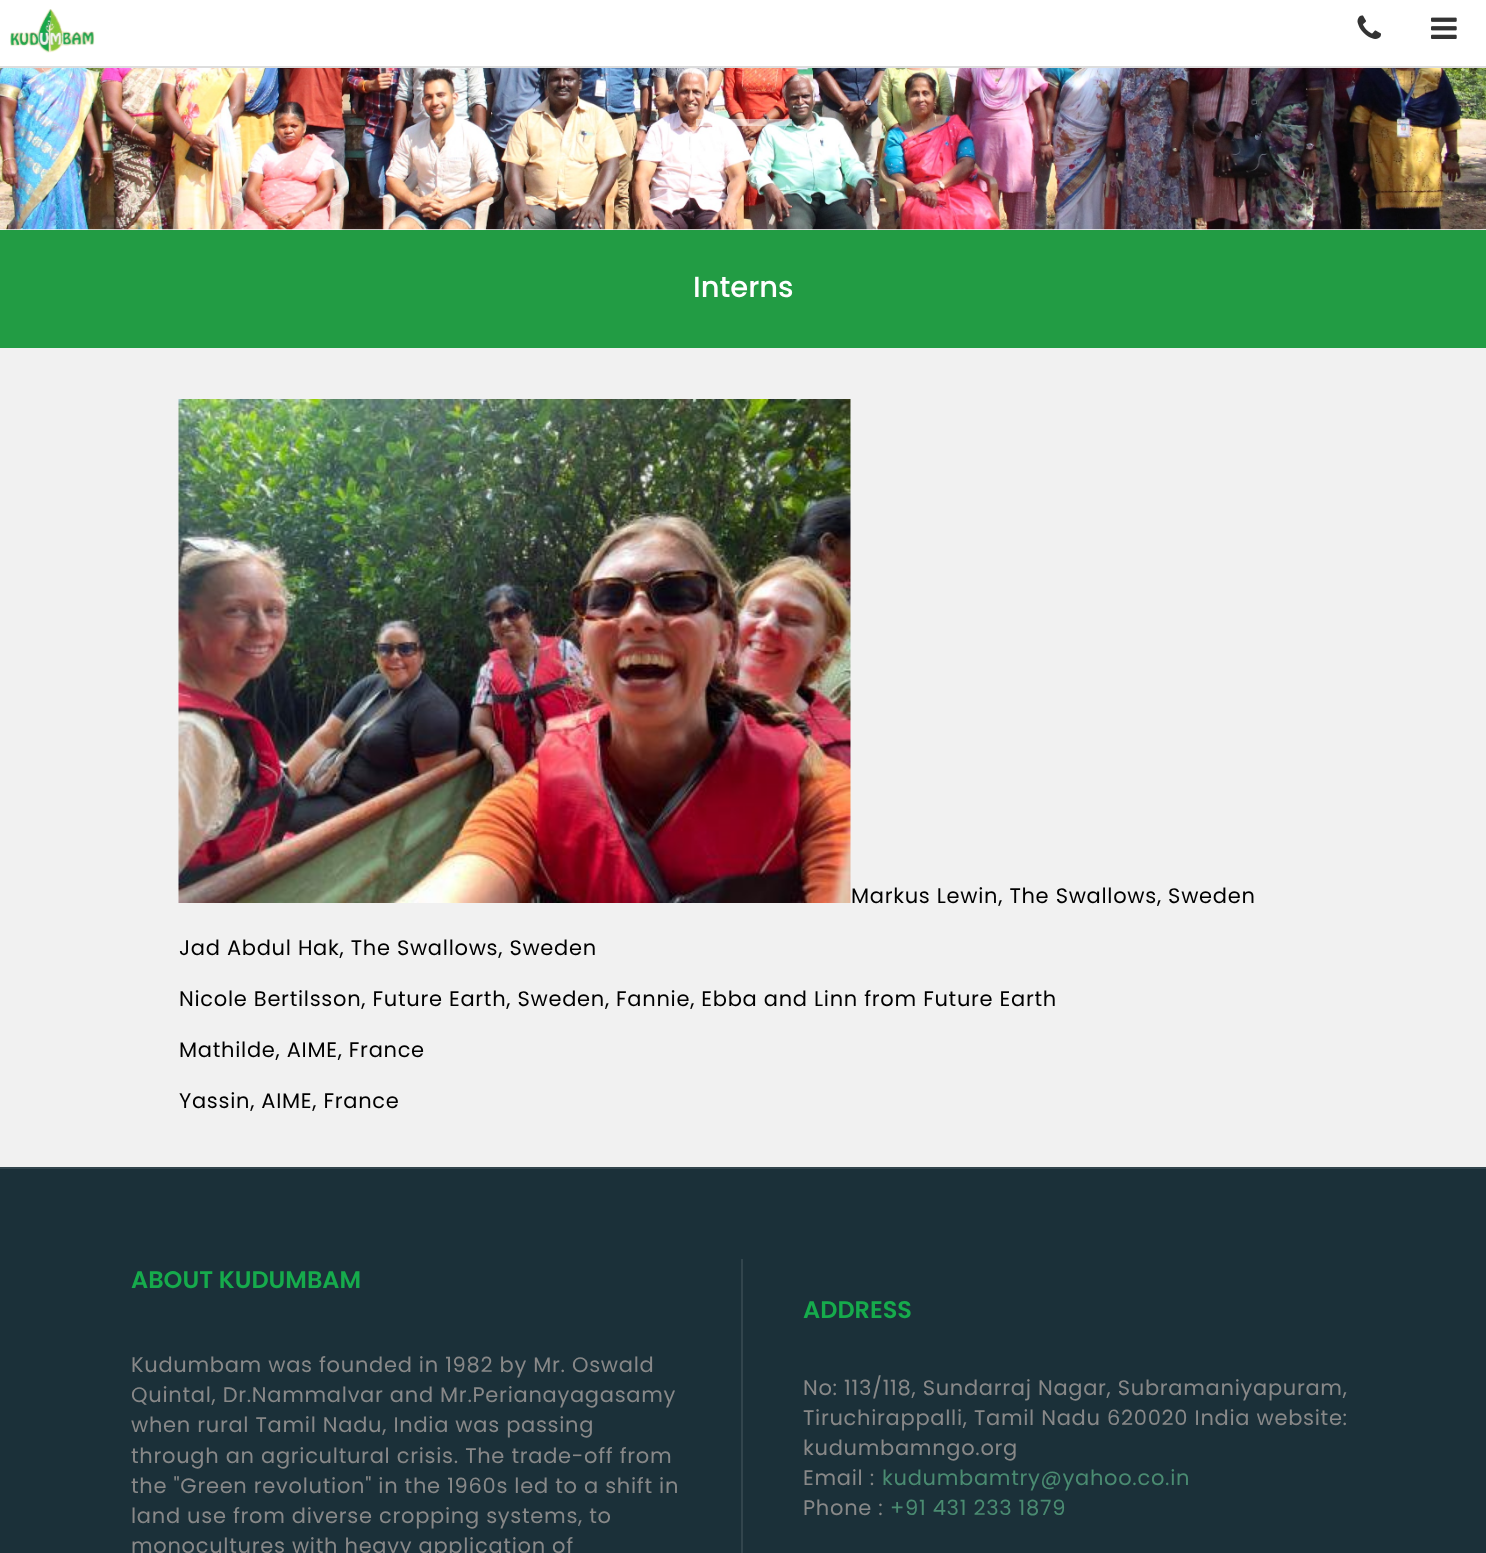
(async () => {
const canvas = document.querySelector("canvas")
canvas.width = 1486
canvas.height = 1553
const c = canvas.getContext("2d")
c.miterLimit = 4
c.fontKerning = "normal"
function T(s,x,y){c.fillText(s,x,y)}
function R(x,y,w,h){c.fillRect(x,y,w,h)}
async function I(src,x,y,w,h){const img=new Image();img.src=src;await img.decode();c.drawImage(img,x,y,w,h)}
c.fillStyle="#fff"
R(0,0,1486,1553)
c.fillStyle="#ddd"
R(0,66,1486,2)
await I("1.png",10,9,85,44)
await I("2.png",1357,15,24,24)
await I("3.png",1431,17,26,22)
await I("4.png",0,68,1486,162)
c.fillStyle="#ffffff80"
R(696,119,96,7)
c.fillStyle="#229c44"
R(0,230,1486,118)
c.font="500 29px Poppins"
c.fillStyle="#fff"
T("Interns",693,297)
c.fillStyle="#f1f1f1"
R(0,348,1486,819)
await I("5.png",178,399,673,504)
c.letterSpacing="0.7px"
c.font="21px Poppins"
c.fillStyle="#000"
T("Markus Lewin, The Swallows, Sweden",851,903)
T("Jad Abdul Hak, The Swallows, Sweden",179,955)
T("Nicole Bertilsson, Future Earth, Sweden, Fannie, Ebba and Linn from Future Earth",179,1006)
T("Mathilde, AIME, France",179,1057)
T("Yassin, AIME, France",179,1108)
c.fillStyle="#1b3039"
R(0,1169,1486,384)
c.fillStyle="#32454d"
R(0,1167,1486,2)
R(741,1259,2,294)
c.letterSpacing="0px"
c.font="600 24px Poppins"
c.fillStyle="#16ab4c"
T("ABOUT KUDUMBAM",131,1288)
c.letterSpacing="0.7px"
c.font="21px Poppins"
c.fillStyle="#888"
T("Kudumbam was founded in 1982 by Mr. Oswald",131,1372)
T("Quintal, Dr.Nammalvar and Mr.Perianayagasamy",131,1402)
T("when rural Tamil Nadu, India was passing",131,1432)
T("through an agricultural crisis. The trade-off from",131,1463)
T("the \"Green revolution\" in the 1960s led to a shift in",131,1493)
T("land use from diverse cropping systems, to",131,1523)
T("monocultures with heavy application of",131,1553)
c.letterSpacing="0px"
c.font="600 24px Poppins"
c.fillStyle="#16ab4c"
T("ADDRESS",803,1318)
c.letterSpacing="0.7px"
c.font="21px Poppins"
c.fillStyle="#888"
T("No: 113/118, Sundarraj Nagar, Subramaniyapuram,",803,1395)
T("Tiruchirappalli, Tamil Nadu 620020 India website:",803,1425)
T("kudumbamngo.org",803,1455)
T("Email :",803,1485)
c.fillStyle="#4a8b71"
T("kudumbamtry@yahoo.co.in",882,1485)
c.fillStyle="#888"
T("Phone :",803,1515)
c.fillStyle="#4a8b71"
T("+91 431 233 1879",890,1515)
})()
